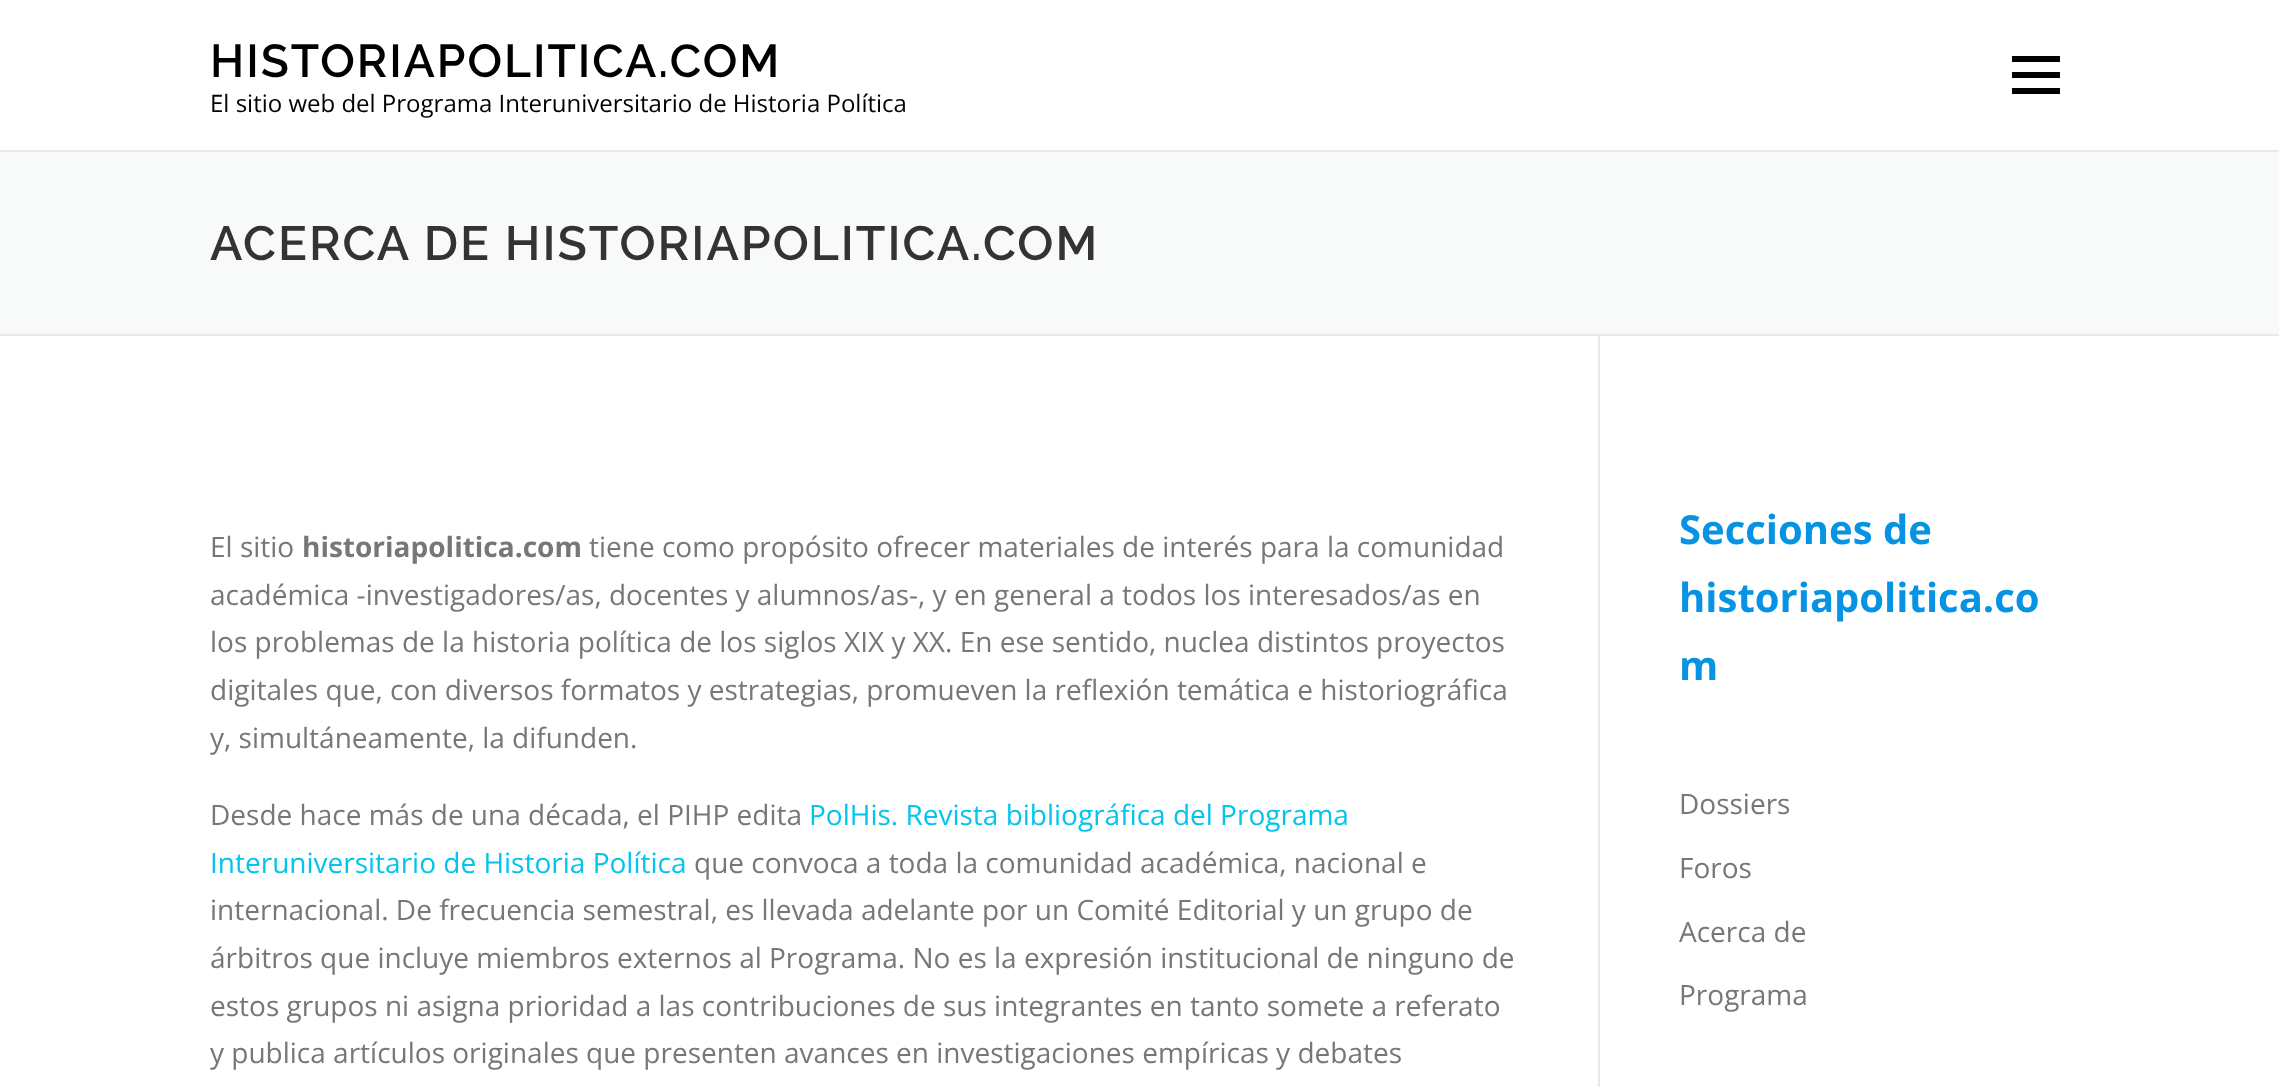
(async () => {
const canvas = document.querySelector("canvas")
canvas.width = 2279
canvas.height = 1087
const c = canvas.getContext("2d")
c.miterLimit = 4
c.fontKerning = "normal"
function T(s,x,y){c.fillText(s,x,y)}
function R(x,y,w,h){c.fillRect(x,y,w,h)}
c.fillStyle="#fff"
R(0,0,2279,1087)
c.letterSpacing="2px"
c.font="600 46px Raleway"
c.fillStyle="#000"
T("HISTORIAPOLITICA.COM",210,77)
c.letterSpacing="0px"
c.font="24px Open Sans"
T("El sitio web del Programa Interuniversitario de Historia Política",210,112)
R(2012,72,48,6)
R(2012,56,48,6)
R(2012,88,48,6)
c.fillStyle="#f8f9f9"
R(0,152,2279,182)
c.fillStyle="#e9e9e9"
R(0,150,2279,2)
R(0,334,2279,2)
c.letterSpacing="2px"
c.font="600 48px Raleway"
c.fillStyle="#333"
T("ACERCA DE HISTORIAPOLITICA.COM",210,260)
c.fillStyle="#e9e9e9"
R(1598,336,2,751)
c.letterSpacing="0px"
c.font="28px Open Sans"
c.fillStyle="#777"
T("El sitio",210,557)
c.font="bold 28px Open Sans"
T("historiapolitica.com",302,557)
c.font="28px Open Sans"
T("tiene como propósito ofrecer materiales de interés para la comunidad",589,557)
T("académica -investigadores/as, docentes y alumnos/as-, y en general a todos los interesados/as en",210,605)
T("los problemas de la historia política de los siglos XIX y XX. En ese sentido, nuclea distintos proyectos",210,652)
T("digitales que, con diversos formatos y estrategias, promueven la reflexión temática e historiográfica",210,700)
T("y, simultáneamente, la difunden.",210,748)
T("Desde hace más de una década, el PIHP edita",210,825)
c.fillStyle="#03c4eb"
T("PolHis. Revista bibliográfica del Programa",809,825)
T("Interuniversitario de Historia Política",210,873)
c.fillStyle="#777"
T("que convoca a toda la comunidad académica, nacional e",694,873)
T("internacional. De frecuencia semestral, es llevada adelante por un Comité Editorial y un grupo de",210,920)
T("árbitros que incluye miembros externos al Programa. No es la expresión institucional de ninguno de",210,968)
T("estos grupos ni asigna prioridad a las contribuciones de sus integrantes en tanto somete a referato",210,1016)
T("y publica artículos originales que presenten avances en investigaciones empíricas y debates",210,1063)
c.font="bold 40px Open Sans"
c.fillStyle="#0693e3"
T("Secciones de",1679,544)
T("historiapolitica.co",1679,612)
T("m",1679,680)
c.font="28px Open Sans"
c.fillStyle="#777"
T("Dossiers",1679,814)
T("Foros",1679,878)
T("Acerca de",1679,942)
T("Programa",1679,1005)
})()
